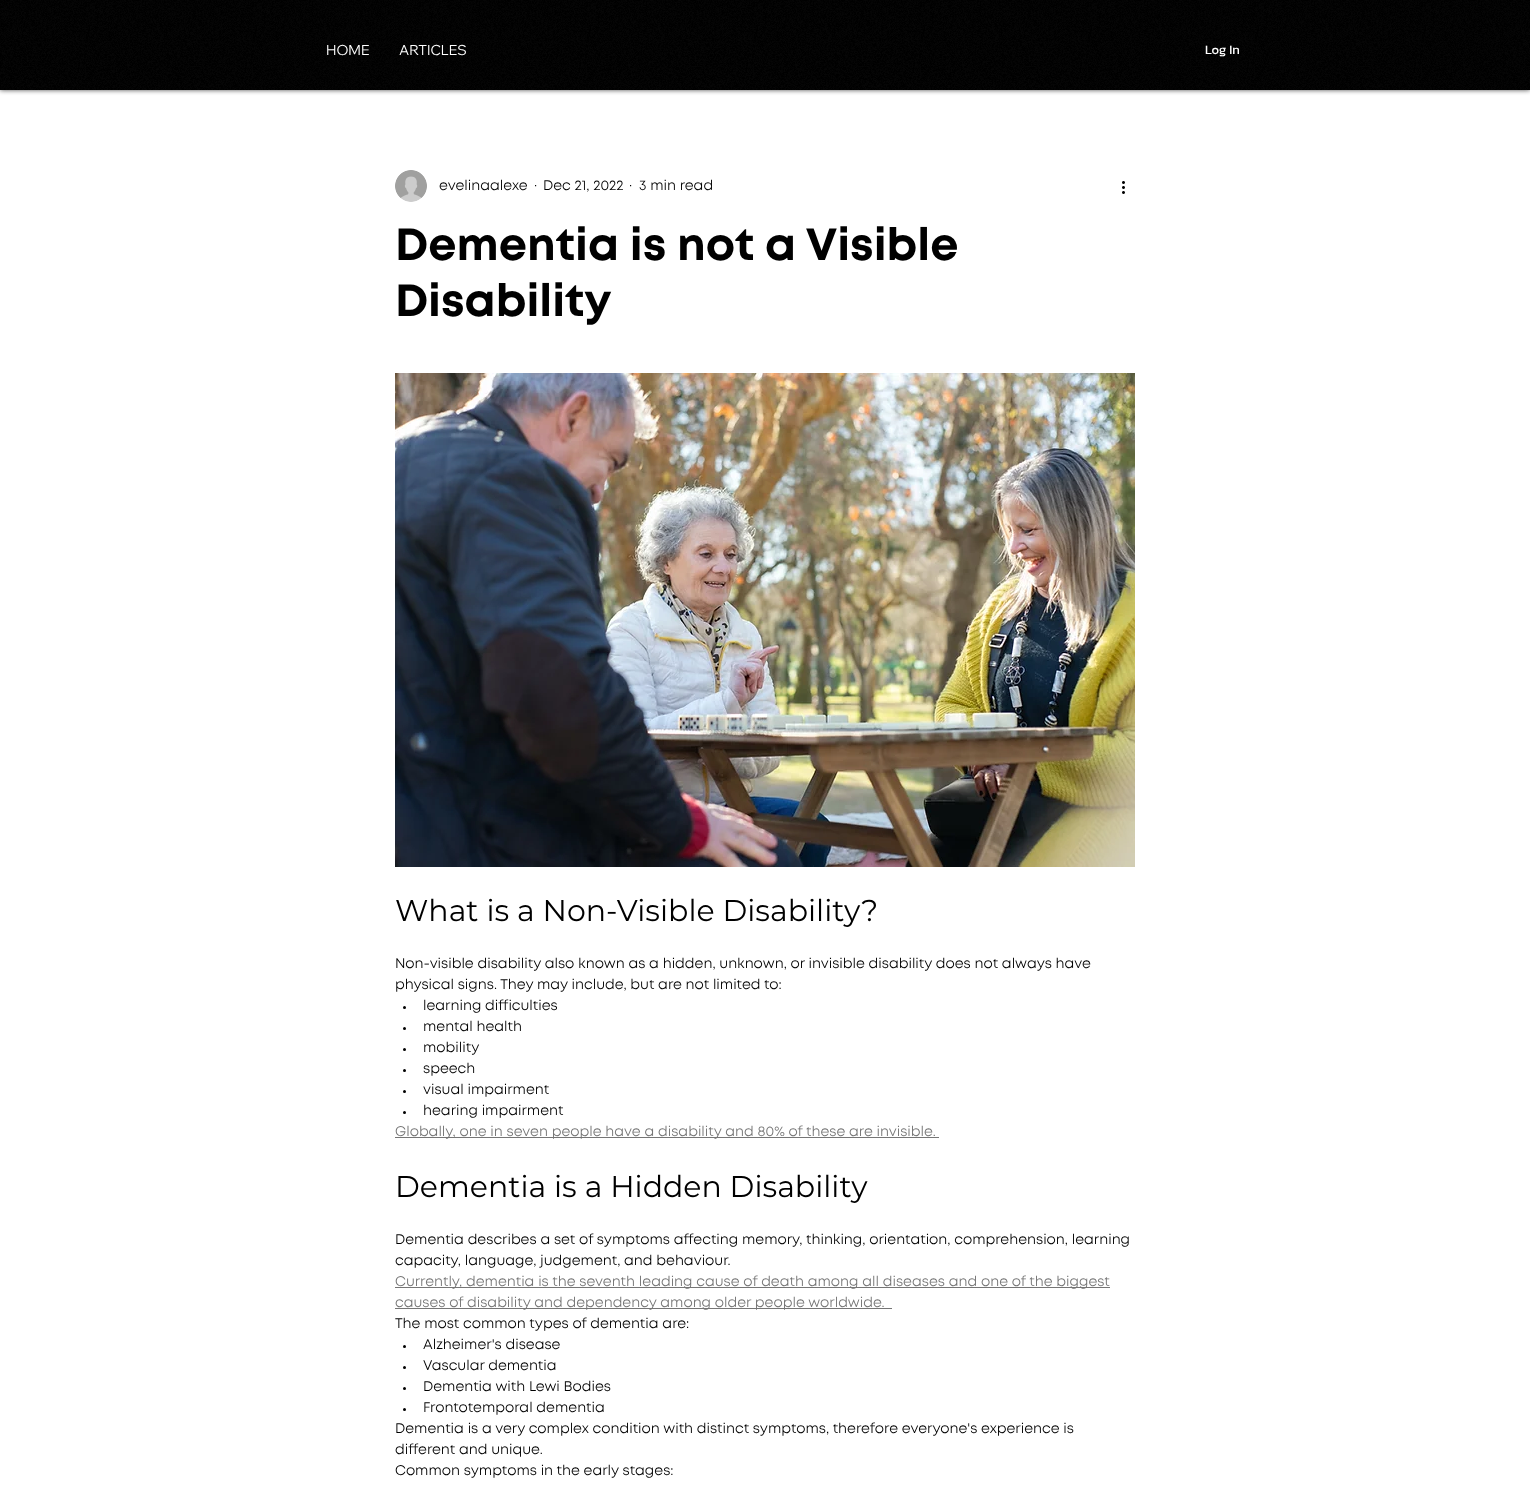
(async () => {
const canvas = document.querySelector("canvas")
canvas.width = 1530
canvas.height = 1490
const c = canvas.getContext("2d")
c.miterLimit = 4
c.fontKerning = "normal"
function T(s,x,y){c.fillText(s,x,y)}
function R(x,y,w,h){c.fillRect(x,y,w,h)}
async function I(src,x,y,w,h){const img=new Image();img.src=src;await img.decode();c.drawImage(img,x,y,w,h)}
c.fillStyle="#fff"
R(0,0,1530,1490)
c.fillStyle="#000000b3"
c.filter="blur(2.5px)"
c.beginPath()
c.rect(0,0,1530,90)
c.fill()
c.filter="none"
c.fillStyle="#000"
R(0,0,1530,90)
await I("1.png",0,0,1530,90)
c.font="14px Wix Madefor Display"
c.fillStyle="#fff"
T("HOME",326,55)
T("ARTICLES",399,55)
c.font="13px Kanit"
T("Log In",1205,54)
await I("2.png",395,170,32,32)
c.font="14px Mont"
c.fillStyle="#000"
T("evelinaalexe",439,190)
T("·",534,190)
T("Dec 21, 2022",543,190)
T("·",629,190)
T("3 min read",639,190)
await I("3.png",1122,181,3,13)
c.font="bold 45px Mont"
T("Dementia is not a Visible",395,260)
T("Disability",395,316)
await I("4.png",395,373,740,494)
c.font="30px Montserrat"
T("What is a Non-Visible Disability?",395,921)
c.font="14px Mont"
T("Non-visible disability also known as a hidden, unknown, or invisible disability does not always have",395,968)
T("physical signs. They may include, but are not limited to:",395,989)
c.beginPath()
c.arc(404.5,1007.5,1.5,0,7)
c.fill()
T("learning difficulties",423,1010)
c.beginPath()
c.arc(404.5,1028.5,1.5,0,7)
c.fill()
T("mental health",423,1031)
c.beginPath()
c.arc(404.5,1049.5,1.5,0,7)
c.fill()
T("mobility",423,1052)
c.beginPath()
c.arc(404.5,1070.5,1.5,0,7)
c.fill()
T("speech",423,1073)
c.beginPath()
c.arc(404.5,1091.5,1.5,0,7)
c.fill()
T("visual impairment",423,1094)
c.beginPath()
c.arc(404.5,1112.5,1.5,0,7)
c.fill()
T("hearing impairment",423,1115)
c.fillStyle="#757575"
R(395,1137,544,1)
T("Globally, one in seven people have a disability and 80% of these are invisible.",395,1136)
c.font="30px Montserrat"
c.fillStyle="#000"
T("Dementia is a Hidden Disability",395,1197)
c.font="14px Mont"
T("Dementia describes a set of symptoms affecting memory, thinking, orientation, comprehension, learning",395,1244)
T("capacity, language, judgement, and behaviour.",395,1265)
c.fillStyle="#757575"
R(395,1287,715,1)
T("Currently, dementia is the seventh leading cause of death among all diseases and one of the biggest",395,1286)
R(395,1308,497,1)
T("causes of disability and dependency among older people worldwide.",395,1307)
c.fillStyle="#000"
T("The most common types of dementia are:",395,1328)
c.beginPath()
c.arc(404.5,1346.5,1.5,0,7)
c.fill()
T("Alzheimer's disease",423,1349)
c.beginPath()
c.arc(404.5,1367.5,1.5,0,7)
c.fill()
T("Vascular dementia",423,1370)
c.beginPath()
c.arc(404.5,1388.5,1.5,0,7)
c.fill()
T("Dementia with Lewi Bodies",423,1391)
c.beginPath()
c.arc(404.5,1409.5,1.5,0,7)
c.fill()
T("Frontotemporal dementia",423,1412)
T("Dementia is a very complex condition with distinct symptoms, therefore everyone's experience is",395,1433)
T("different and unique.",395,1454)
T("Common symptoms in the early stages:",395,1475)
})()
